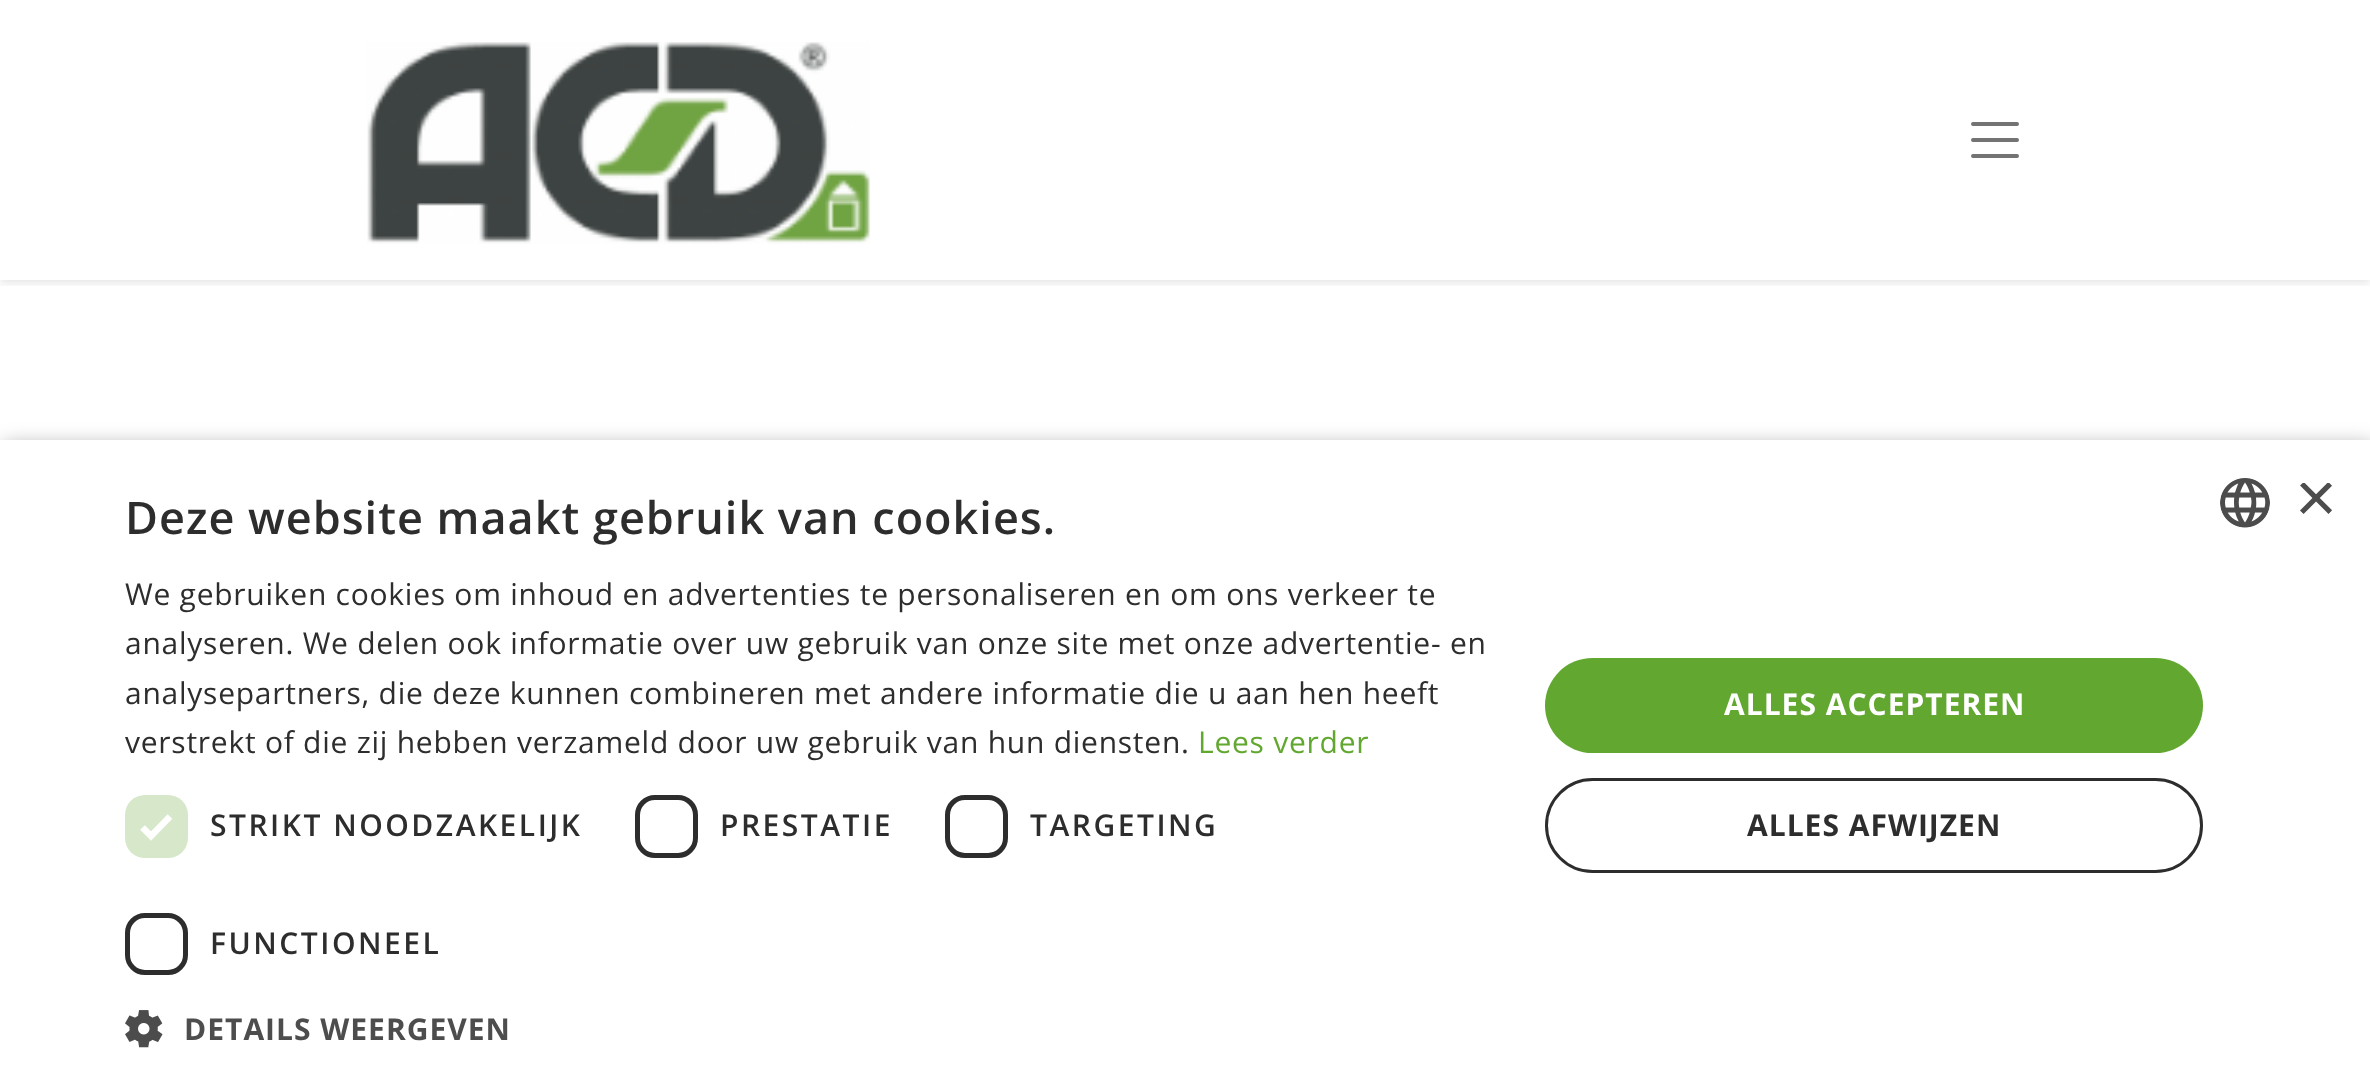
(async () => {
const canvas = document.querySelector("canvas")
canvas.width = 2370
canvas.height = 1090
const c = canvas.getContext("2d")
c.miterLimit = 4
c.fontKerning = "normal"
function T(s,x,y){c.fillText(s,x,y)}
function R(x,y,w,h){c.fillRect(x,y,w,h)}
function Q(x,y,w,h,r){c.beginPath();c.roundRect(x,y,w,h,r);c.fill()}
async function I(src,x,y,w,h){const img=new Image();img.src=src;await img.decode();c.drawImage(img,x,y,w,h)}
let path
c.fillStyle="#fff"
R(0,0,2370,1090)
c.save()
c.beginPath()
c.rect(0,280,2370,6)
c.clip()
c.fillStyle="#0000001a"
c.filter="blur(4px)"
c.beginPath()
c.rect(0,3,2370,280)
c.fill()
c.filter="none"
c.restore()
await I("1.png",367,42,503,202)
path = new Path2D("M1973 124h44m-44 16h44m-44 16h44")
c.strokeStyle="#737373"
c.lineWidth=4
c.lineCap="round"
c.stroke(path)
c.fillStyle="#00000059"
c.filter="blur(10px)"
c.beginPath()
c.rect(3,445,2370,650)
c.fill()
c.filter="none"
c.fillStyle="#fff"
R(0,440,2370,650)
c.letterSpacing="1px"
c.font="600 45px Open Sans"
c.fillStyle="#2d2d2d"
T("Deze website maakt gebruik van cookies.",125,534)
c.letterSpacing="0.75px"
c.font="30px Open Sans"
T("We gebruiken cookies om inhoud en advertenties te personaliseren en om ons verkeer te",125,605)
T("analyseren. We delen ook informatie over uw gebruik van onze site met onze advertentie- en",125,654)
T("analysepartners, die deze kunnen combineren met andere informatie die u aan hen heeft",125,704)
T("verstrekt of die zij hebben verzameld door uw gebruik van hun diensten.",125,753)
c.fillStyle="#62a730"
T("Lees verder",1198,753)
c.fillStyle="#d6e8c9"
Q(125,795,63,63,20)
path = new Path2D("M142.5 827.5l8.5 8.5l19-19.5")
c.strokeStyle="#fff"
c.lineWidth=6.6
c.lineCap="butt"
c.stroke(path)
c.letterSpacing="2.5px"
c.font="600 30px Open Sans"
c.fillStyle="#2d2d2d"
T("STRIKT NOODZAKELIJK",210,836)
c.beginPath()
c.roundRect(637.5,797.5,58,58,17.5)
c.strokeStyle="#2d2d2d"
c.lineWidth=5
c.stroke()
T("PRESTATIE",720,836)
c.beginPath()
c.roundRect(947.5,797.5,58,58,17.5)
c.stroke()
T("TARGETING",1030,836)
c.beginPath()
c.roundRect(127.5,915.5,58,57,17.5)
c.stroke()
T("FUNCTIONEEL",210,954)
await I("2.png",125,1010,38,38)
c.letterSpacing="1px"
c.font="bold 30px Open Sans"
c.fillStyle="#4d4d4d"
T("DETAILS WEERGEVEN",184,1040)
c.fillStyle="#62a730"
Q(1545,658,658,95,47.5)
c.fillStyle="#fff"
T("ALLES ACCEPTEREN",1724,715)
c.beginPath()
c.roundRect(1546.5,779.5,655,92,46)
c.lineWidth=3
c.stroke()
c.fillStyle="#2d2d2d"
T("ALLES AFWIJZEN",1747,836)
await I("3.png",2220,478,50,50)
c.save()
c.beginPath()
c.rect(2295,483,38,37)
c.clip()
c.letterSpacing="0px"
c.font="72px Liberation Sans"
c.fillStyle="#4d4d4d"
T("×",2295,522)
c.restore()
})()
